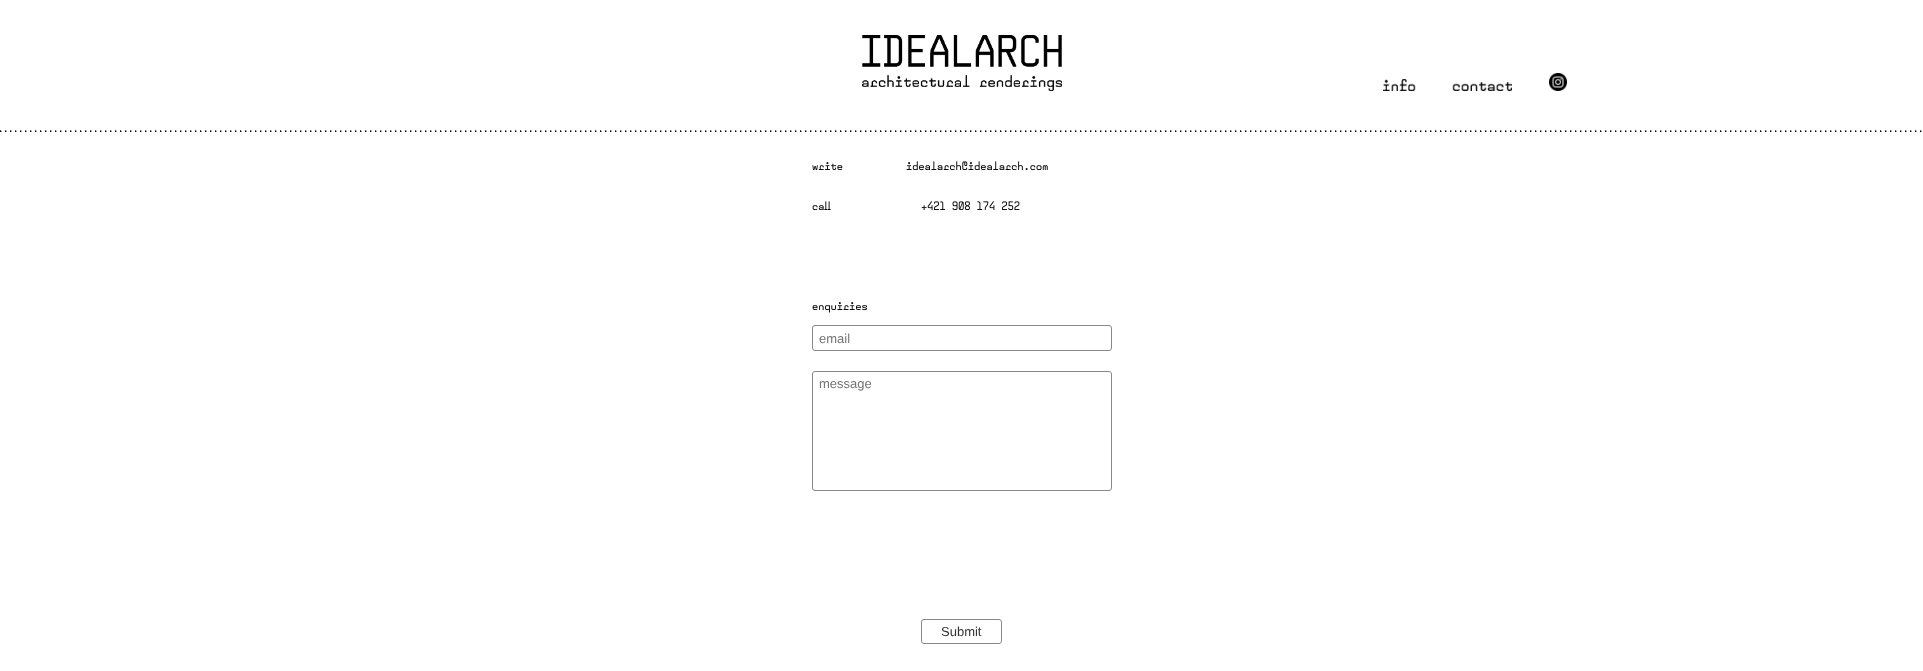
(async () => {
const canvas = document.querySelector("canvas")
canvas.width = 1923
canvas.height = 671
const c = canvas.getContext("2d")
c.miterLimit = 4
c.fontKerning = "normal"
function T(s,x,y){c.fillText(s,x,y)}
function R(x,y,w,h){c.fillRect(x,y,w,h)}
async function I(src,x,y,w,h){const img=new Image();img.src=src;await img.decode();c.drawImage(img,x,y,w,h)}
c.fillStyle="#fff"
R(0,0,1923,671)
await I("1.png",0,130,1922,2)
await I("2.png",862,35,200,56)
await I("3.png",1383,79,33,12)
await I("4.png",1452,82,60,9)
await I("5.png",1549,73,18,18)
await I("6.png",812,162,31,9)
await I("7.png",906,161,142,10)
await I("8.png",812,201,19,10)
await I("9.png",921,201,99,9)
await I("10.png",812,302,55,11)
c.beginPath()
c.roundRect(812.5,325.5,299,25,2.5)
c.strokeStyle="#888"
c.stroke()
c.font="13px Liberation Sans"
c.fillStyle="#757575"
T("email",819,343)
c.beginPath()
c.roundRect(812.5,371.5,299,119,2.5)
c.stroke()
T("message",819,388)
c.beginPath()
c.roundRect(921.5,619.5,80,24,2.5)
c.stroke()
c.fillStyle="#333"
T("Submit",941,636)
})()
